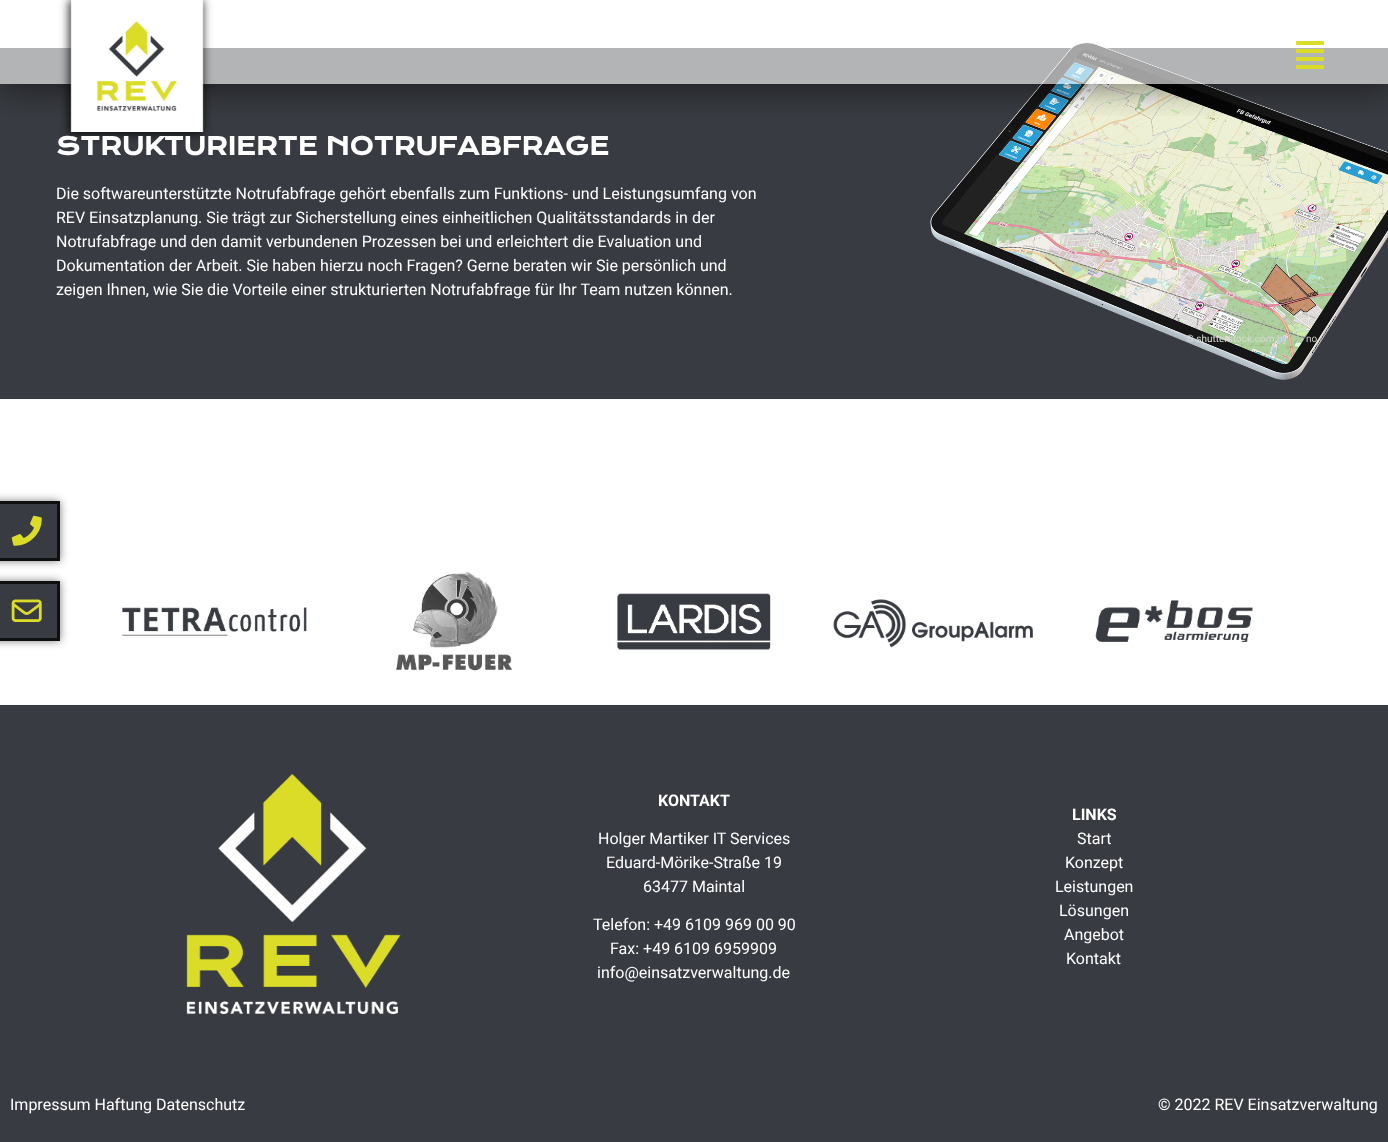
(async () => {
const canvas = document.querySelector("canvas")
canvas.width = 1388
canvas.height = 1142
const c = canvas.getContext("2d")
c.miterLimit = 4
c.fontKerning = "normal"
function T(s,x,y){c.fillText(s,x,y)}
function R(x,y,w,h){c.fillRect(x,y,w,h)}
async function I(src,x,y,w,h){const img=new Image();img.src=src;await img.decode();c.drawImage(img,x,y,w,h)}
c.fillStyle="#fff"
R(0,0,1388,1142)
c.fillStyle="#383b41"
R(0,48,1388,351)
await I("3.png",930,42,458,338)
c.save()
c.beginPath()
c.rect(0,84,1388,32)
c.clip()
c.fillStyle="#00000087"
c.filter="blur(16.5px)"
c.beginPath()
c.rect(1,3,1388,84)
c.fill()
c.filter="none"
c.restore()
c.fillStyle="#ffffff9e"
R(0,42,1388,42)
c.fillStyle="#000000cf"
c.filter="blur(5px)"
c.beginPath()
c.rect(69,0,134,134)
c.fill()
c.filter="none"
await I("1.png",70,0,134,132)
await I("2.png",1296,41,28,28)
c.font="bold 24px Krona One"
c.fillStyle="#fff"
T("STRUKTURIERTE NOTRUFABFRAGE",56,155)
c.font="16px Roboto"
T("Die softwareunterstützte Notrufabfrage gehört ebenfalls zum Funktions- und Leistungsumfang von",56,199)
T("REV Einsatzplanung. Sie trägt zur Sicherstellung eines einheitlichen Qualitätsstandards in der",56,223)
T("Notrufabfrage und den damit verbundenen Prozessen bei und erleichtert die Evaluation und",56,247)
T("Dokumentation der Arbeit. Sie haben hierzu noch Fragen? Gerne beraten wir Sie persönlich und",56,271)
T("zeigen Ihnen, wie Sie die Vorteile einer strukturierten Notrufabfrage für Ihr Team nutzen können.",56,295)
c.font="10px Roboto"
c.fillStyle="#d5dcd3"
T("© shutterstock.com by",1186,342)
c.fillStyle="#cacdc7"
T("no",1306,342)
await I("4.png",122,607,185,29)
await I("5.png",396,572,116,99)
await I("6.png",617,593,154,57)
await I("7.png",833,599,200,49)
await I("8.png",1095,600,158,42)
c.fillStyle="#00000080"
c.filter="blur(4px)"
c.beginPath()
c.rect(-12,501,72,60)
c.fill()
c.filter="none"
c.fillStyle="#383b41"
c.beginPath()
c.rect(-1.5,502.5,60,57)
c.fill()
c.strokeStyle="#0e0f10"
c.lineWidth=3
c.stroke()
await I("9.png",11,515,31,31)
c.fillStyle="#00000080"
c.filter="blur(4px)"
c.beginPath()
c.rect(-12,581,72,60)
c.fill()
c.filter="none"
c.fillStyle="#383b41"
c.beginPath()
c.rect(-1.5,582.5,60,57)
c.fill()
c.stroke()
await I("10.png",11,599,31,23)
R(0,705,1388,437)
await I("11.png",186,774,215,240)
c.font="bold 16px Roboto"
c.fillStyle="#fff"
T("KONTAKT",658,806)
c.font="16px Roboto"
T("Holger Martiker IT Services",598,844)
T("Eduard-Mörike-Straße 19",606,868)
T("63477 Maintal",643,892)
T("Telefon: +49 6109 969 00 90",593,930)
T("Fax: +49 6109 6959909",610,954)
T("info@einsatzverwaltung.de",597,978)
c.font="bold 16px Roboto"
T("LINKS",1072,820)
c.font="16px Roboto"
T("Start",1077,844)
T("Konzept",1065,868)
T("Leistungen",1055,892)
T("Lösungen",1059,916)
T("Angebot",1064,940)
T("Kontakt",1066,964)
T("Impressum Haftung Datenschutz",10,1110)
T("© 2022 REV Einsatzverwaltung",1158,1110)
})()
